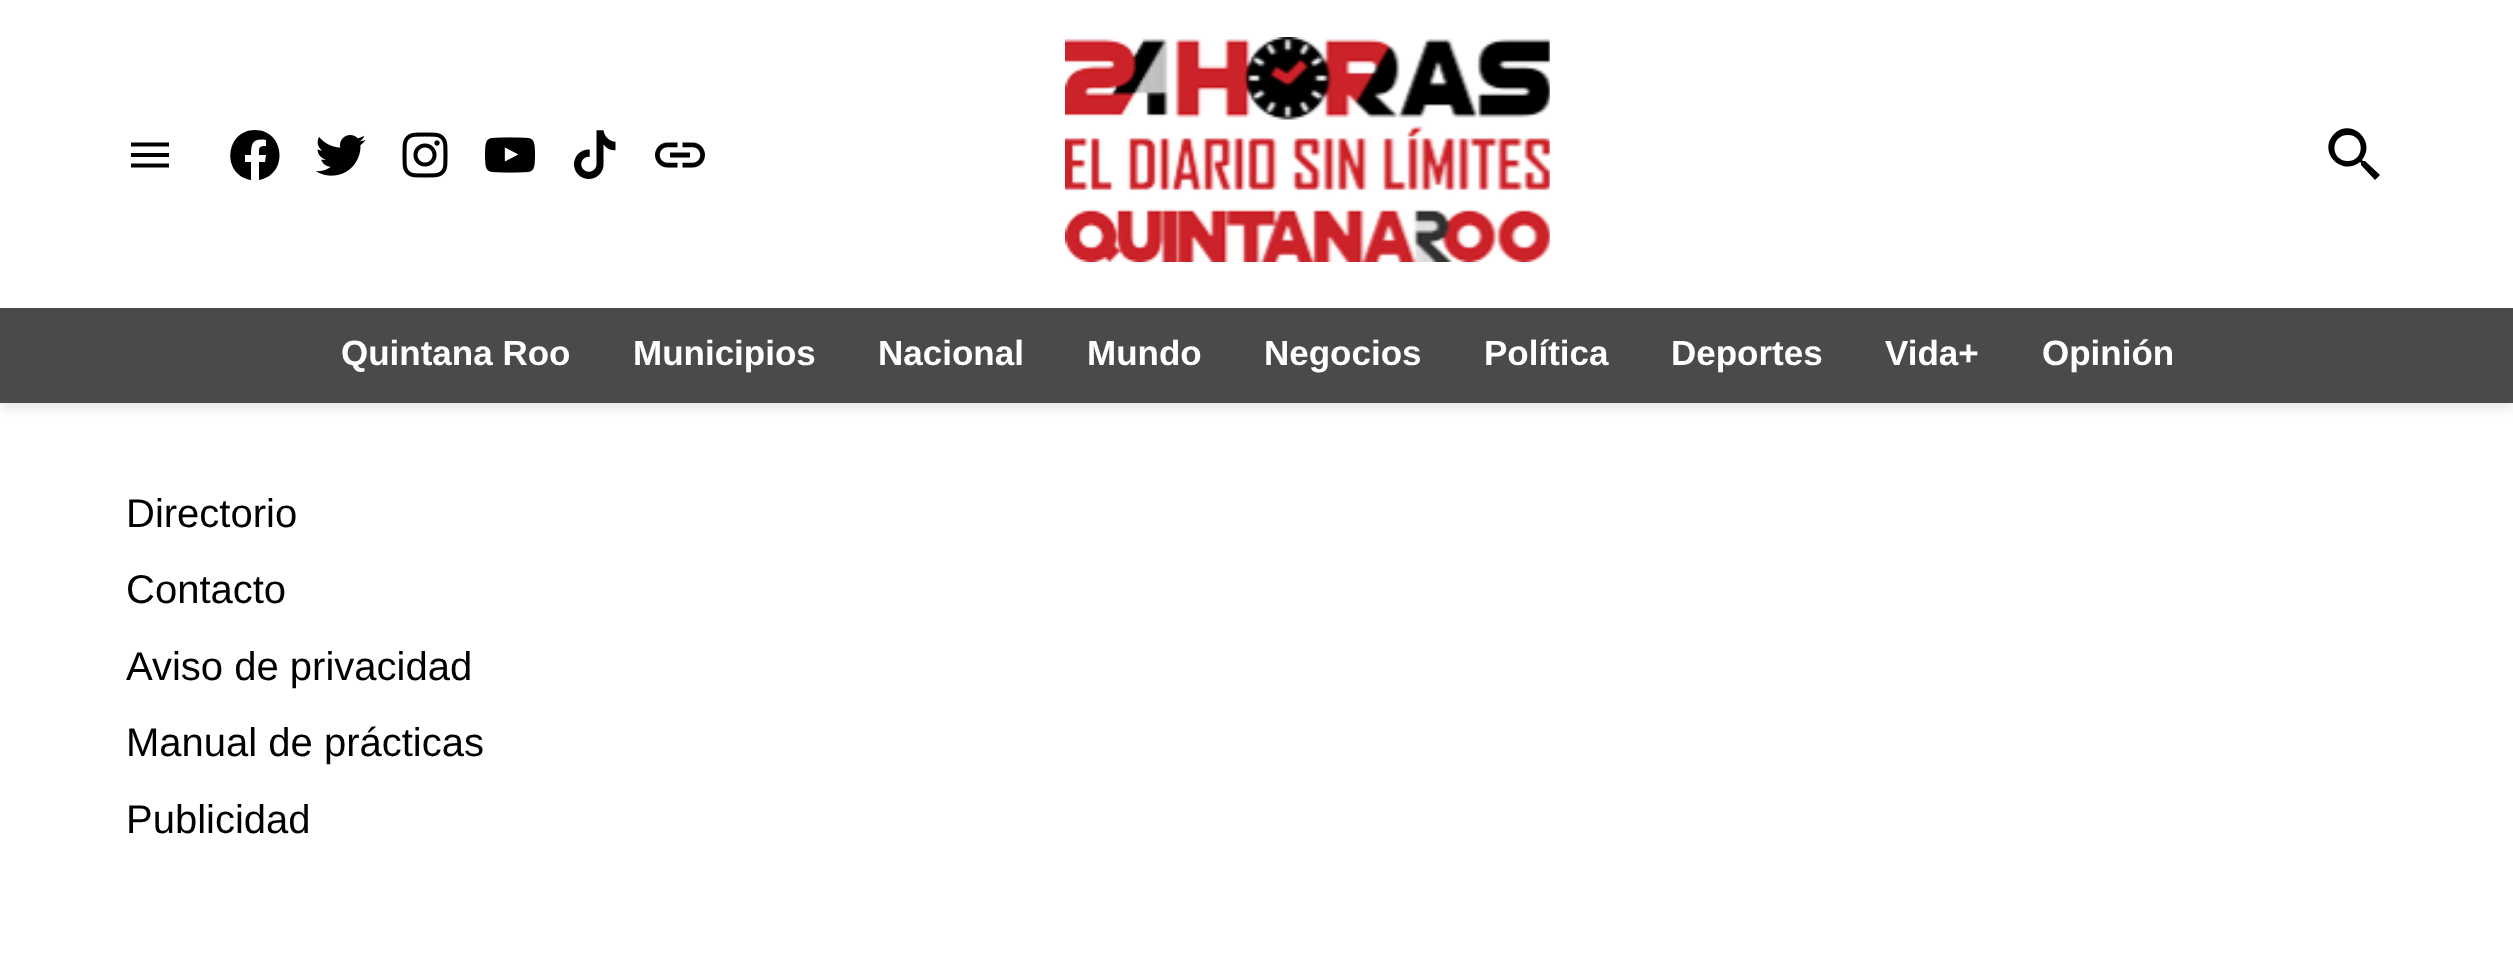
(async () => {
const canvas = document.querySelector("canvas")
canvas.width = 2513
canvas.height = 957
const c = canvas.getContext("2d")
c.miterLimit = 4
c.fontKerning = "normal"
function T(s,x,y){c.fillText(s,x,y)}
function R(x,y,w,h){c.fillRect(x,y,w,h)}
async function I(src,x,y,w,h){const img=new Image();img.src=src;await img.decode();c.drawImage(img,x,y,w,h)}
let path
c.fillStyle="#fff"
R(0,0,2513,957)
c.fillStyle="#0000001a"
c.filter="blur(6px)"
c.beginPath()
c.rect(0,5,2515,403)
c.fill()
c.filter="none"
c.fillStyle="#fff"
R(0,0,2513,308)
c.fillStyle="#000"
path = new Path2D("M131 167.5h38v-4h-38zm0-10.5h38v-4h-38zm0-14.5v4h38v-4z")
c.fill(path)
path = new Path2D("M255 130c-30 0-34 45-4 50v-18h-6v-7h6c0-12 2-17 15-15v6c-8 0-7 2-7 9h7l-1 7h-6v18c30-5 26-50-4-50z")
c.fill(path)
await I("1.png",315,135,51,41)
await I("2.png",402,132,46,46)
await I("3.png",485,137,50,36)
await I("4.png",574,130,42,49)
await I("5.png",655,142,50,26)
await I("6.png",1065,37,485,225)
path = new Path2D("M2365 161h-2l-1-1c15-18-10-43-28-26c-17 18 8 43 26 28l1 1v2l14 15l5-5zm-17 0c-18 0-18-26 0-26c17 0 17 26 0 26z")
c.fill(path)
c.fillStyle="#4a4a4a"
R(0,308,2513,95)
c.font="bold 35px Liberation Sans"
c.fillStyle="#fff"
T("Quintana Roo",341,365)
T("Municipios",633,365)
T("Nacional",878,365)
T("Mundo",1087,365)
T("Negocios",1264,365)
T("Política",1484,365)
T("Deportes",1671,365)
T("Vida+",1885,365)
T("Opinión",2042,365)
c.font="40px Liberation Sans"
c.fillStyle="#000"
T("Directorio",126,527)
T("Contacto",126,603)
T("Aviso de privacidad",126,680)
T("Manual de prácticas",126,756)
T("Publicidad",126,833)
})()
